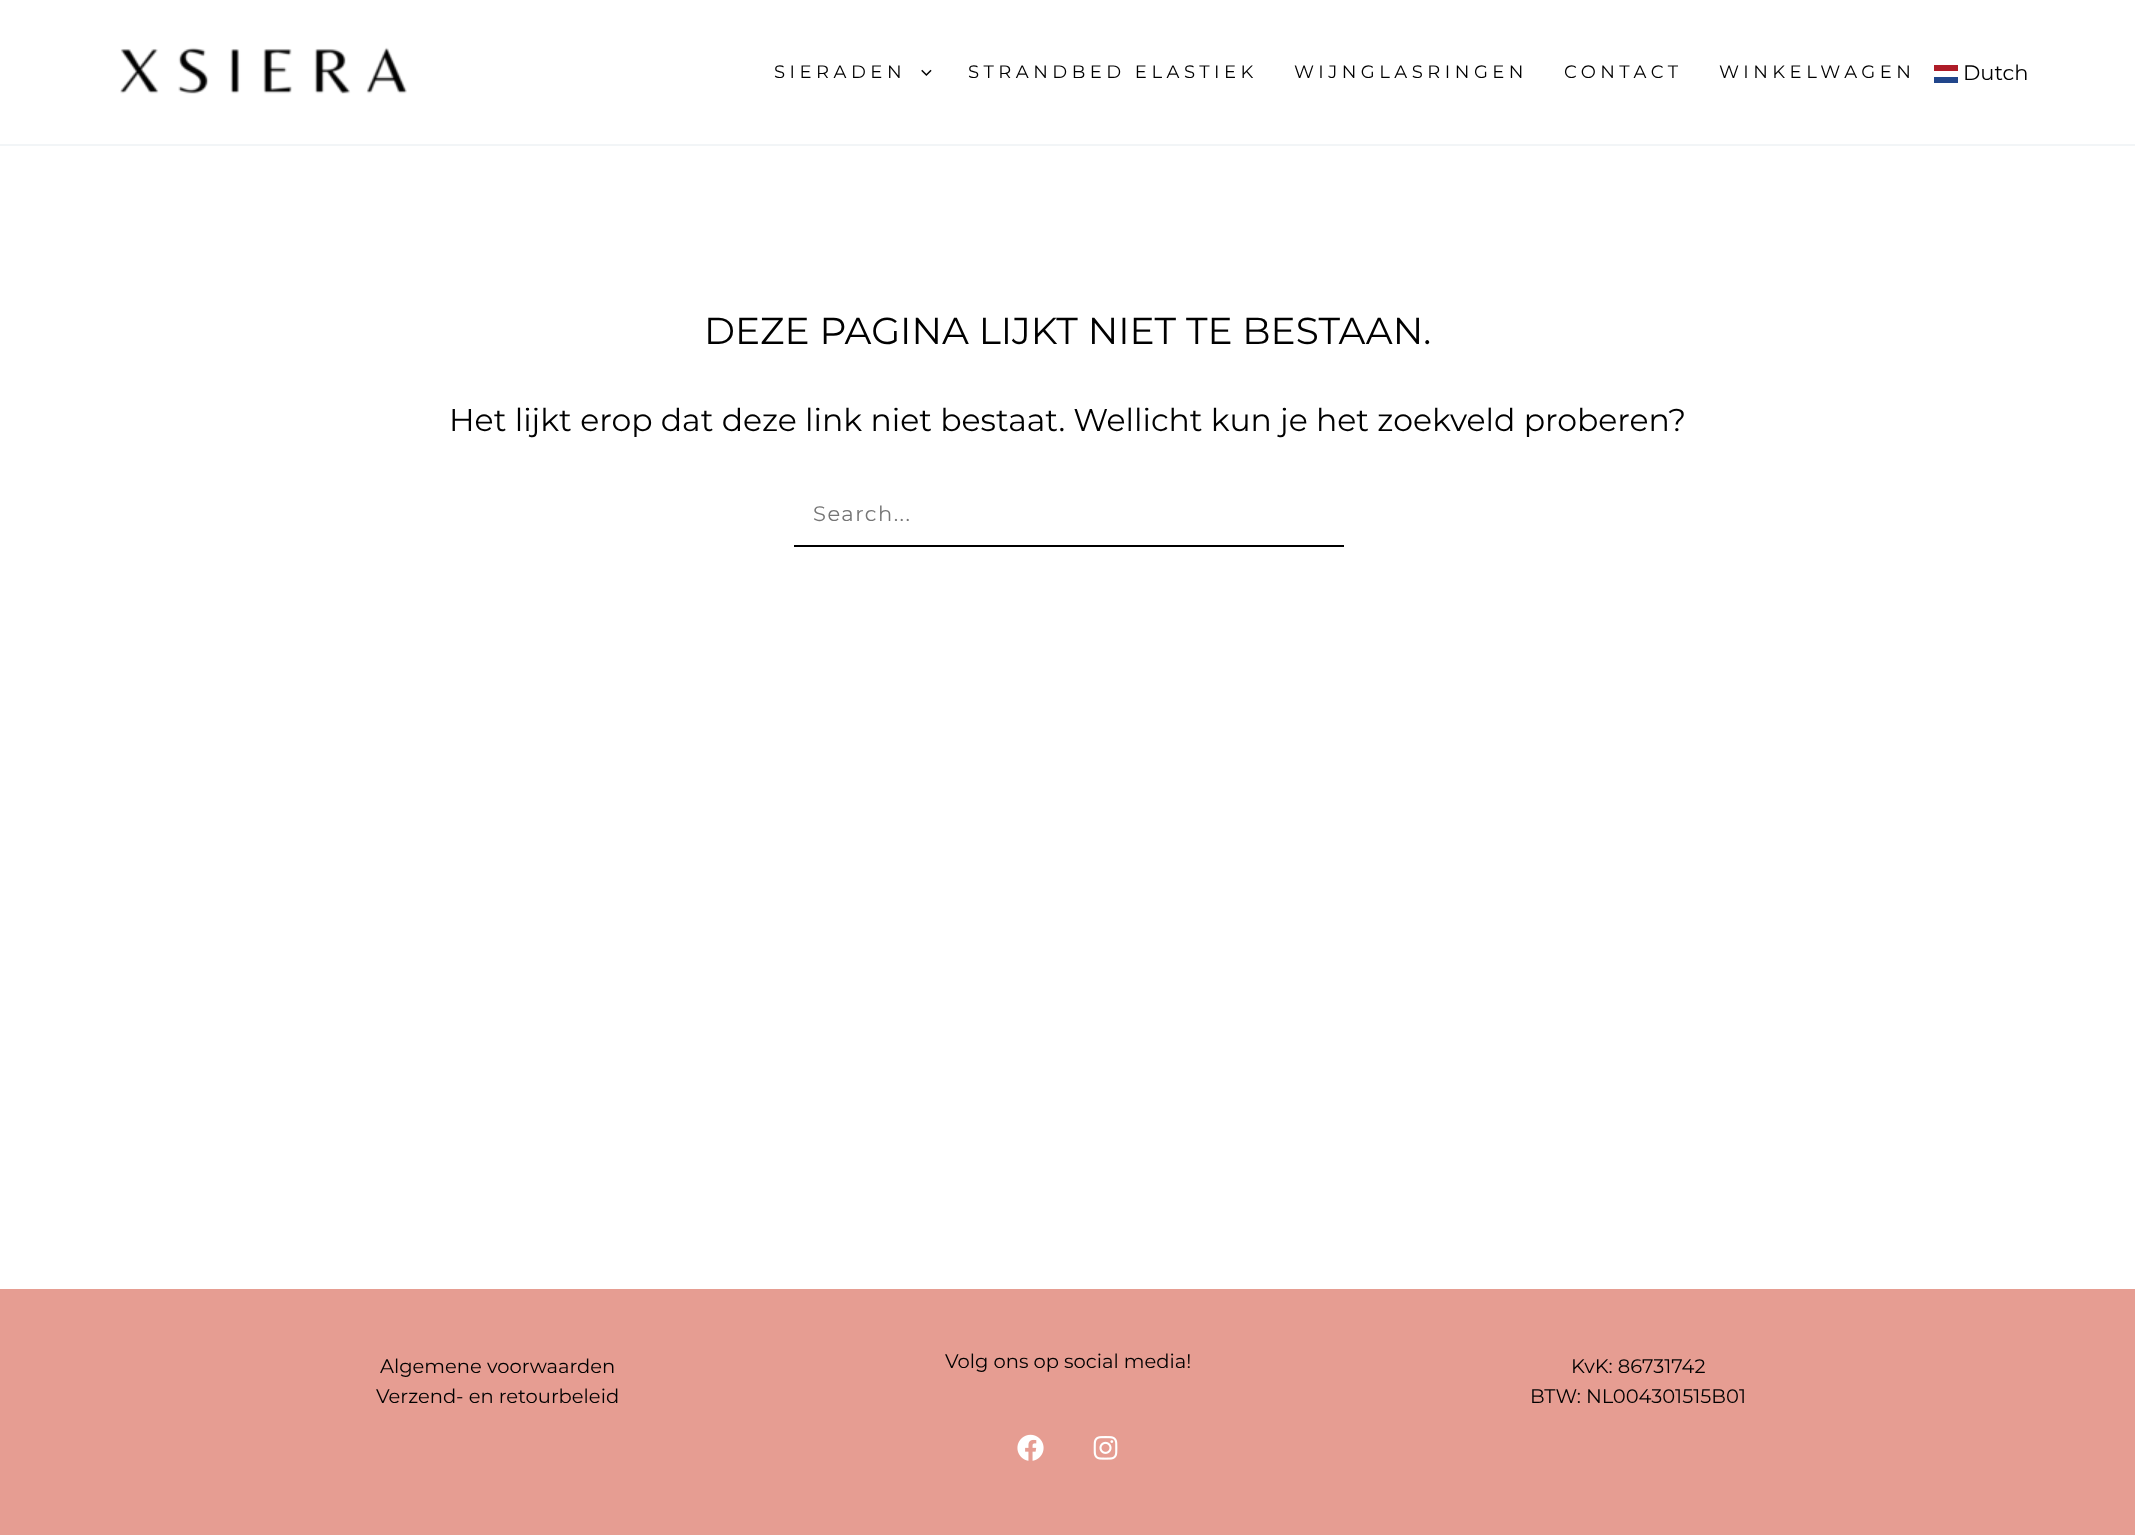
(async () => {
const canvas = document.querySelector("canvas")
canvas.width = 2135
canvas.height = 1535
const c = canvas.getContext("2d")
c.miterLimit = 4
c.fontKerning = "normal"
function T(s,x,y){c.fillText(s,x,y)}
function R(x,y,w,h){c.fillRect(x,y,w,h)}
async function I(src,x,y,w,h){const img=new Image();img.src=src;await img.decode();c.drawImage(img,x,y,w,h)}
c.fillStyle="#fff"
R(0,0,2135,1535)
c.fillStyle="#f2f5f7"
R(0,144,2135,2)
await I("1.png",120,47,287,47)
c.letterSpacing="4.5px"
c.font="18px Montserrat"
c.fillStyle="#000"
T("SIERADEN",774,78)
await I("2.png",921,69,11,7)
T("STRANDBED ELASTIEK",968,78)
T("WIJNGLASRINGEN",1294,78)
T("CONTACT",1564,78)
T("WINKELWAGEN",1719,78)
c.fillStyle="#ae1c28"
R(1934,65,24,6)
c.letterSpacing="0px"
c.font="21px Montserrat"
c.fillStyle="#000"
T("Dutch",1963,80)
c.fillStyle="#21468b"
R(1934,77,24,6)
c.font="37.5px Montserrat"
c.fillStyle="#000"
T("DEZE PAGINA LIJKT NIET TE BESTAAN.",704,344)
c.font="31.5px Montserrat"
T("Het lijkt erop dat deze link niet bestaat. Wellicht kun je het zoekveld proberen?",449,431)
R(794,545,550,2)
c.letterSpacing="1.5px"
c.font="21px Montserrat"
c.fillStyle="#757575"
T("Search...",813,521)
c.fillStyle="#e69d92"
R(0,1289,2135,246)
c.letterSpacing="0px"
c.font="19.5px Montserrat"
c.fillStyle="#000"
T("Algemene voorwaarden",380,1373)
T("Verzend- en retourbeleid",376,1403)
T("Volg ons op social media!",945,1368)
await I("3.png",1017,1434,27,27)
await I("4.png",1093,1436,25,24)
T("KvK: 86731742",1571,1373)
T("BTW: NL004301515B01",1530,1403)
})()
